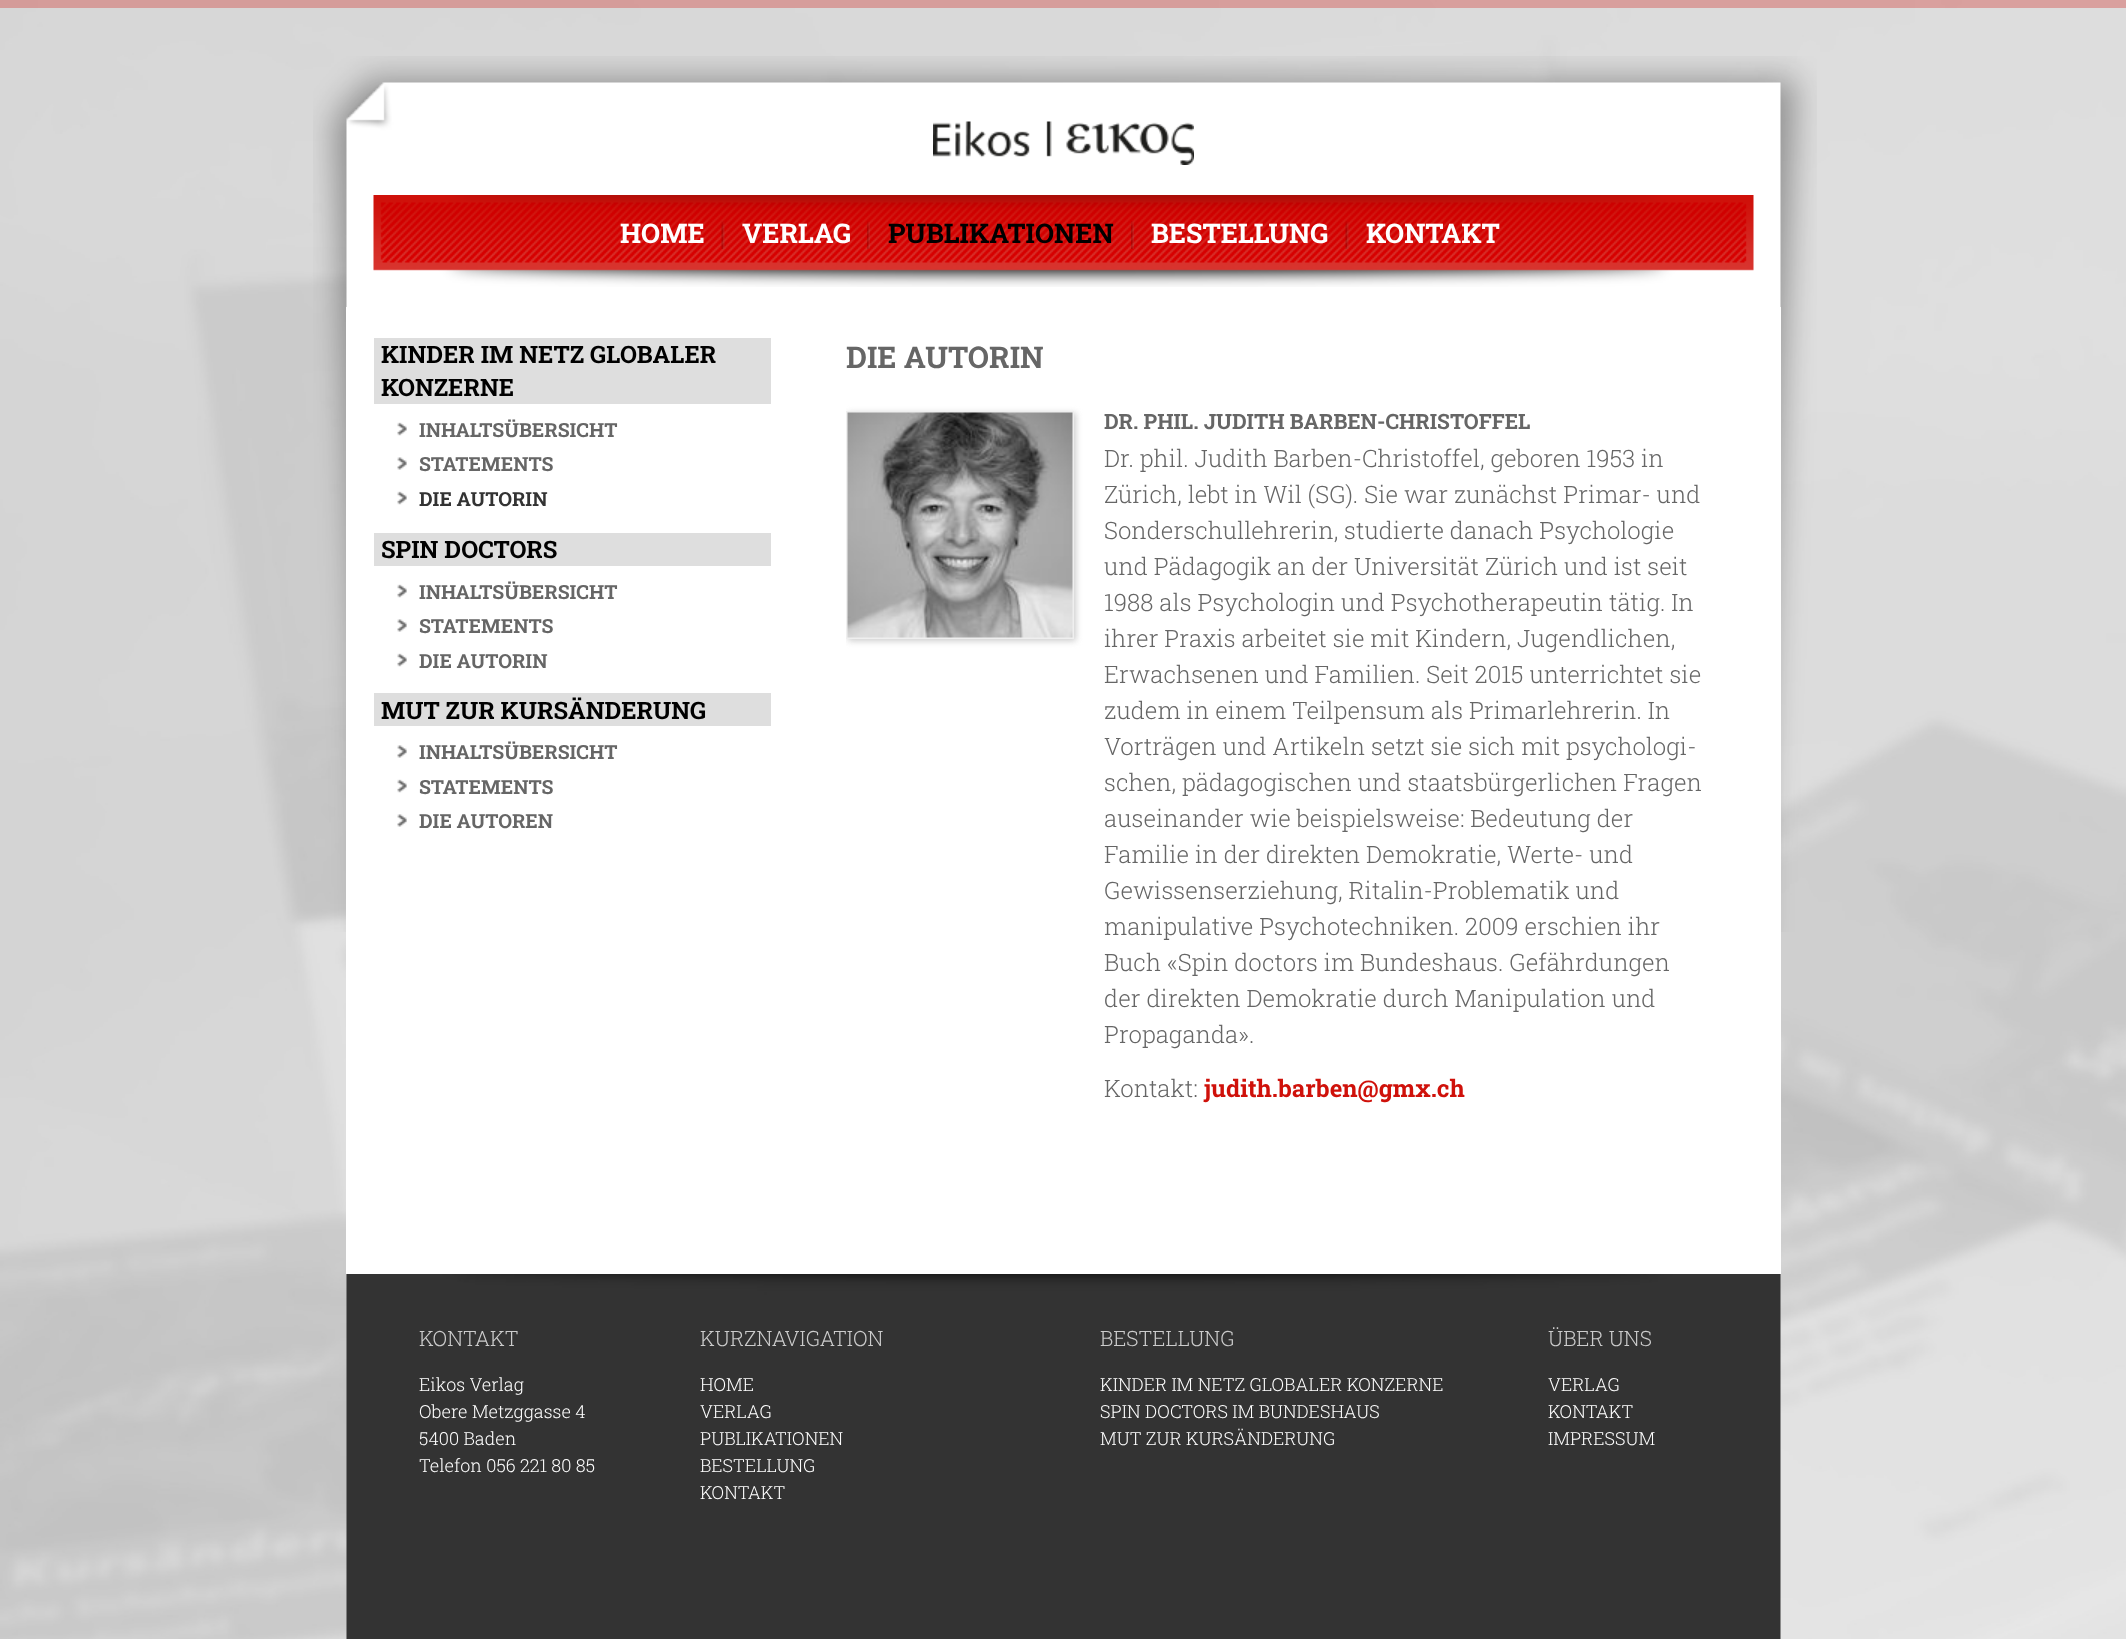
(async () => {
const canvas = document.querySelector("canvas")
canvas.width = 2126
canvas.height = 1639
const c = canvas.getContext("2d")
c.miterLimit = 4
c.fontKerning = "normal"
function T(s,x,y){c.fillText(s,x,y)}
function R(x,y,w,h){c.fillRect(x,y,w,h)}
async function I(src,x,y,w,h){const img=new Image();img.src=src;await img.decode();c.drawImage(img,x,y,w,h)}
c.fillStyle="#fff"
R(0,0,2126,1639)
await I("1.png",0,0,2126,1639)
await I("2.png",313,56,1504,876)
c.fillStyle="#d0150e4d"
R(0,0,2126,8)
await I("3.png",346,82,1435,225)
await I("4.png",933,121,261,44)
await I("5.png",373,195,1381,92)
c.font="bold 27px Roboto Slab"
c.fillStyle="#fff"
T("HOME",620,243)
await I("6.png",721,221,4,28)
T("VERLAG",742,243)
await I("7.png",867,221,3,28)
c.fillStyle="#000"
T("PUBLIKATIONEN",888,243)
await I("8.png",1131,221,3,28)
c.fillStyle="#fff"
T("BESTELLUNG",1151,243)
await I("9.png",1345,221,4,28)
T("KONTAKT",1366,243)
R(346,307,1435,967)
c.fillStyle="#dedede"
R(374,338,397,66)
c.font="bold 24px Roboto Slab"
c.fillStyle="#000"
T("KINDER IM NETZ GLOBALER",381,363)
T("KONZERNE",381,396)
await I("10.png",397,422,10,14)
c.font="bold 19.5px Roboto Slab"
c.fillStyle="#666"
T("INHALTSÜBERSICHT",419,437)
await I("11.png",397,457,10,13)
T("STATEMENTS",419,471)
await I("10.png",397,491,10,14)
c.fillStyle="#333"
T("DIE AUTORIN",419,506)
c.fillStyle="#dedede"
R(374,533,397,33)
c.font="bold 24px Roboto Slab"
c.fillStyle="#000"
T("SPIN DOCTORS",381,558)
await I("10.png",397,584,10,14)
c.font="bold 19.5px Roboto Slab"
c.fillStyle="#666"
T("INHALTSÜBERSICHT",419,599)
await I("11.png",397,619,10,13)
T("STATEMENTS",419,633)
await I("10.png",397,653,10,14)
T("DIE AUTORIN",419,668)
c.fillStyle="#dedede"
R(374,693,397,33)
c.font="bold 24px Roboto Slab"
c.fillStyle="#000"
T("MUT ZUR KURSÄNDERUNG",381,719)
await I("11.png",397,745,10,13)
c.font="bold 19.5px Roboto Slab"
c.fillStyle="#666"
T("INHALTSÜBERSICHT",419,759)
await I("10.png",397,779,10,14)
T("STATEMENTS",419,794)
await I("11.png",397,814,10,13)
T("DIE AUTOREN",419,828)
c.font="bold 30px Roboto Slab"
T("DIE AUTORIN",846,368)
c.save()
c.beginPath()
c.rect(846,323,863,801)
c.clip()
c.fillStyle="#ccc"
c.filter="blur(3px)"
c.beginPath()
c.rect(848,413,228,228)
c.fill()
c.filter="none"
c.restore()
c.strokeStyle="#efefef"
c.lineWidth=2
c.strokeRect(847,412,226,226)
await I("12.png",847,412,226,226)
c.font="bold 21px Roboto Slab"
T("DR. PHIL. JUDITH BARBEN-CHRISTOFFEL",1104,429)
c.font="300 24px Roboto Slab"
T("Dr. phil. Judith Barben-Christoffel, geboren 1953 in",1104,467)
T("Zürich, lebt in Wil (SG). Sie war zunächst Primar- und",1104,503)
T("Sonderschullehrerin, studierte danach Psychologie",1104,539)
T("und Pädagogik an der Universität Zürich und ist seit",1104,575)
T("1988 als Psychologin und Psychotherapeutin tätig. In",1104,611)
T("ihrer Praxis arbeitet sie mit Kindern, Jugendlichen,",1104,647)
T("Erwachsenen und Familien. Seit 2015 unterrichtet sie",1104,683)
T("zudem in einem Teilpensum als Primarlehrerin. In",1104,719)
T("Vorträgen und Artikeln setzt sie sich mit psychologi-",1104,755)
T("schen, pädagogischen und staatsbürgerlichen Fragen",1104,791)
T("auseinander wie beispielsweise: Bedeutung der",1104,827)
T("Familie in der direkten Demokratie, Werte- und",1104,863)
T("Gewissenserziehung, Ritalin-Problematik und",1104,899)
T("manipulative Psychotechniken. 2009 erschien ihr",1104,935)
T("Buch «Spin doctors im Bundeshaus. Gefährdungen",1104,971)
T("der direkten Demokratie durch Manipulation und",1104,1007)
T("Propaganda».",1104,1043)
T("Kontakt:",1104,1097)
c.font="bold 24px Roboto Slab"
c.fillStyle="#cf110a"
T("judith.barben@gmx.ch",1204,1097)
await I("13.png",346,1274,1435,365)
c.font="300 21px Roboto Slab"
c.fillStyle="#ccc"
T("KONTAKT",419,1346)
c.font="300 18px Roboto Slab"
c.fillStyle="#fff"
T("Eikos Verlag",419,1391)
T("Obere Metzggasse 4",419,1418)
T("5400 Baden",419,1445)
T("Telefon 056 221 80 85",419,1472)
c.font="300 21px Roboto Slab"
c.fillStyle="#ccc"
T("KURZNAVIGATION",700,1346)
c.font="300 18px Roboto Slab"
c.fillStyle="#fff"
T("HOME",700,1391)
T("VERLAG",700,1418)
T("PUBLIKATIONEN",700,1445)
T("BESTELLUNG",700,1472)
T("KONTAKT",700,1499)
c.font="300 21px Roboto Slab"
c.fillStyle="#ccc"
T("BESTELLUNG",1100,1346)
c.font="300 18px Roboto Slab"
c.fillStyle="#fff"
T("KINDER IM NETZ GLOBALER KONZERNE",1100,1391)
T("SPIN DOCTORS IM BUNDESHAUS",1100,1418)
T("MUT ZUR KURSÄNDERUNG",1100,1445)
c.font="300 21px Roboto Slab"
c.fillStyle="#ccc"
T("ÜBER UNS",1548,1346)
c.font="300 18px Roboto Slab"
c.fillStyle="#fff"
T("VERLAG",1548,1391)
T("KONTAKT",1548,1418)
T("IMPRESSUM",1548,1445)
})()
